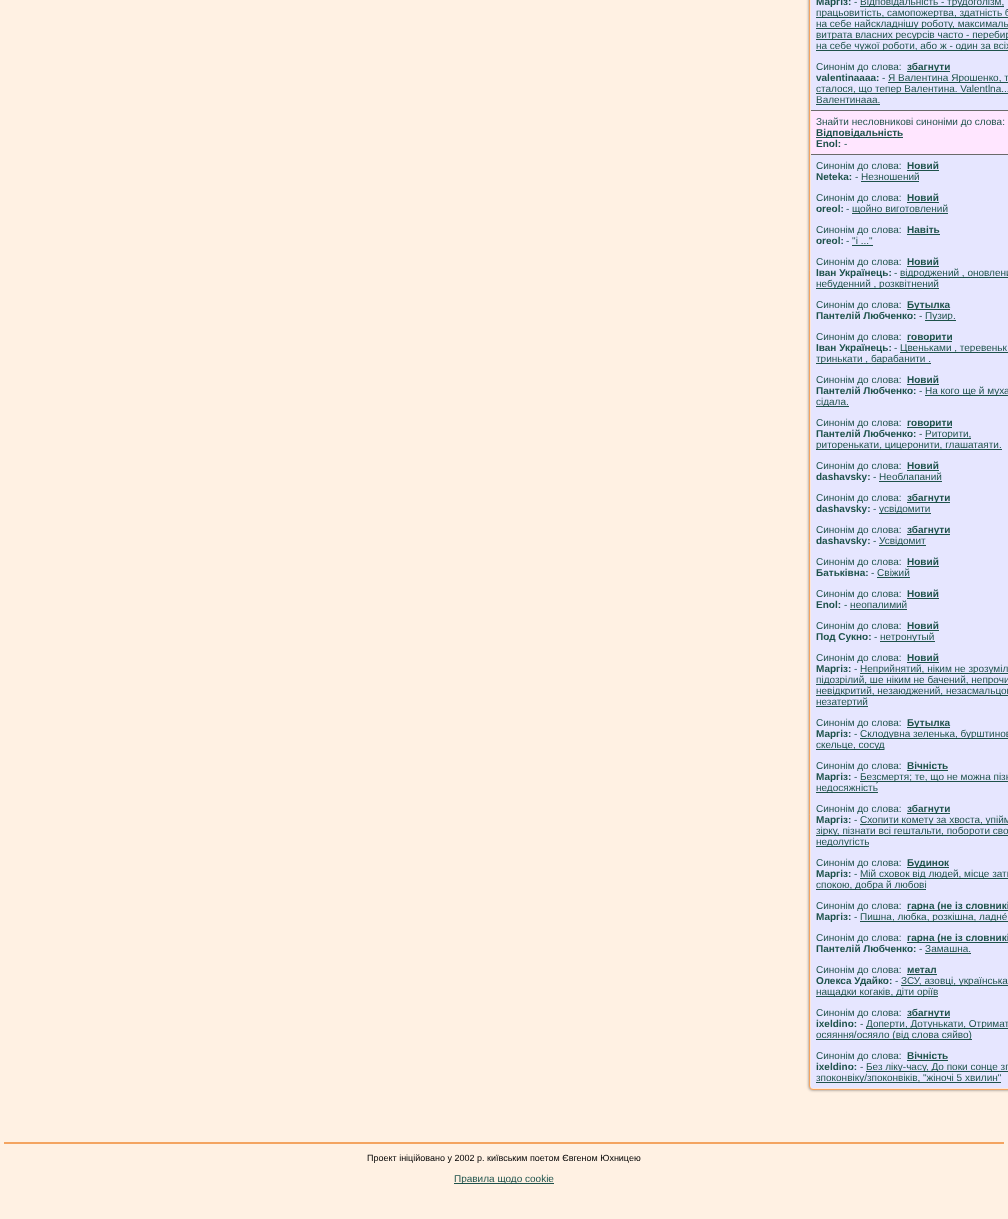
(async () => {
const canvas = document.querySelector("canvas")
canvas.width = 1008
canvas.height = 1219
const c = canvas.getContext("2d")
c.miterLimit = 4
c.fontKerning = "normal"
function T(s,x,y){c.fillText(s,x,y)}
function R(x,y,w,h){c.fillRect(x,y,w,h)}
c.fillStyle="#fff1e3"
R(0,0,1008,1219)
c.fillStyle="#00000080"
c.filter="blur(1.5px)"
c.beginPath()
c.roundRect(809,-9,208,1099,4)
c.fill()
c.filter="none"
c.fillStyle="#fbe8dd"
c.beginPath()
c.roundRect(809.5,-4.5,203,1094,3.5)
c.fill()
c.strokeStyle="#f4a460"
c.stroke()
c.fillStyle="#e6e6ff"
R(811,0,197,110)
c.font="bold 10px Liberation Sans"
c.fillStyle="#1e524b"
T("Маргіз:",816,5)
c.font="10px Liberation Sans"
T("-",854,5)
R(860,6,144,1)
T("Відповідальність - трудоголізм,",860,5)
R(816,17,192,1)
T("працьовитість, самопожертва, здатність б",816,16)
R(816,28,192,1)
T("на себе найскладнішу роботу, максималь",816,27)
R(816,39,192,1)
T("витрата власних ресурсів часто - перебир",816,38)
R(816,50,192,1)
T("на себе чужої роботи, або ж - один за всіх",816,49)
T("Синонім до слова:",816,70)
R(907,71,43,1)
c.font="bold 10px Liberation Sans"
T("збагнути",907,70)
T("valentinaaaa:",816,81)
c.font="10px Liberation Sans"
T("-",882,81)
R(888,82,120,1)
T("Я Валентина Ярошенко, т",888,81)
R(816,93,192,1)
T("сталося, що тепер Валентина. Valentlna...",816,92)
T("Валентинааа.",816,103)
R(816,104,64,1)
c.fillStyle="#ffe6ff"
R(811,111,197,43)
c.fillStyle="#6a6a6a"
R(811,110,197,1)
R(811,154,197,1)
c.fillStyle="#1e524b"
T("Знайти несловникові синоніми до слова:",816,125)
R(816,137,87,1)
c.font="bold 10px Liberation Sans"
T("Відповідальність",816,136)
T("Enol:",816,147)
c.font="10px Liberation Sans"
T("-",844,147)
c.fillStyle="#e6e6ff"
R(811,155,197,933)
c.fillStyle="#1e524b"
T("Синонім до слова:",816,169)
c.font="bold 10px Liberation Sans"
T("Новий",907,169)
R(907,170,32,1)
T("Neteka:",816,180)
c.font="10px Liberation Sans"
T("- Незношений",855,180)
R(861,181,58,1)
T("Синонім до слова:",816,201)
c.font="bold 10px Liberation Sans"
T("Новий",907,201)
R(907,202,32,1)
T("oreol:",816,212)
c.font="10px Liberation Sans"
T("-",846,212)
R(852,213,96,1)
T("щойно виготовлений",852,212)
T("Синонім до слова:",816,233)
c.font="bold 10px Liberation Sans"
T("Навіть",907,233)
R(907,234,33,1)
T("oreol:",816,244)
c.font="10px Liberation Sans"
T("- \"і ...\"",846,244)
R(852,245,21,1)
T("Синонім до слова:",816,265)
c.font="bold 10px Liberation Sans"
T("Новий",907,265)
R(907,266,32,1)
T("Іван Українець:",816,276)
c.font="10px Liberation Sans"
T("-",894,276)
R(900,277,108,1)
T("відроджений , оновлени",900,276)
R(816,288,123,1)
T("небуденний , розквітнений",816,287)
T("Синонім до слова:",816,308)
R(907,309,43,1)
c.font="bold 10px Liberation Sans"
T("Бутылка",907,308)
T("Пантелій Любченко:",816,319)
c.font="10px Liberation Sans"
T("-",919,319)
R(925,320,31,1)
T("Пузир.",925,319)
T("Синонім до слова:",816,340)
R(907,341,45,1)
c.font="bold 10px Liberation Sans"
T("говорити",907,340)
T("Іван Українець:",816,351)
c.font="10px Liberation Sans"
T("-",894,351)
R(900,352,108,1)
T("Цвеньками , теревеньк",900,351)
R(816,363,115,1)
T("тринькати , барабанити .",816,362)
T("Синонім до слова:",816,383)
c.font="bold 10px Liberation Sans"
T("Новий",907,383)
R(907,384,32,1)
T("Пантелій Любченко:",816,394)
c.font="10px Liberation Sans"
T("-",919,394)
R(925,395,83,1)
T("На кого ще й муха",925,394)
R(816,406,33,1)
T("сідала.",816,405)
T("Синонім до слова:",816,426)
R(907,427,45,1)
c.font="bold 10px Liberation Sans"
T("говорити",907,426)
T("Пантелій Любченко:",816,437)
c.font="10px Liberation Sans"
T("-",919,437)
R(925,438,46,1)
T("Риторити,",925,437)
R(816,449,186,1)
T("риторенькати, цицеронити, глашатаяти.",816,448)
T("Синонім до слова:",816,469)
c.font="bold 10px Liberation Sans"
T("Новий",907,469)
R(907,470,32,1)
T("dashavsky:",816,480)
c.font="10px Liberation Sans"
T("- Необлапаний",873,480)
R(879,481,63,1)
T("Синонім до слова:",816,501)
R(907,502,43,1)
c.font="bold 10px Liberation Sans"
T("збагнути",907,501)
T("dashavsky:",816,512)
c.font="10px Liberation Sans"
T("-",873,512)
R(879,513,52,1)
T("усвідомити",879,512)
T("Синонім до слова:",816,533)
R(907,534,43,1)
c.font="bold 10px Liberation Sans"
T("збагнути",907,533)
T("dashavsky:",816,544)
c.font="10px Liberation Sans"
T("-",873,544)
R(879,545,47,1)
T("Усвідомит",879,544)
T("Синонім до слова:",816,565)
c.font="bold 10px Liberation Sans"
T("Новий",907,565)
R(907,566,32,1)
T("Батьківна:",816,576)
c.font="10px Liberation Sans"
T("- Свіжий",871,576)
R(877,577,33,1)
T("Синонім до слова:",816,597)
c.font="bold 10px Liberation Sans"
T("Новий",907,597)
R(907,598,32,1)
T("Enol:",816,608)
c.font="10px Liberation Sans"
T("- неопалимий",844,608)
R(850,609,57,1)
T("Синонім до слова:",816,629)
c.font="bold 10px Liberation Sans"
T("Новий",907,629)
R(907,630,32,1)
T("Под Сукно:",816,640)
c.font="10px Liberation Sans"
T("-",874,640)
R(880,641,55,1)
T("нетронутый",880,640)
T("Синонім до слова:",816,661)
c.font="bold 10px Liberation Sans"
T("Новий",907,661)
R(907,662,32,1)
T("Маргіз:",816,672)
c.font="10px Liberation Sans"
T("-",854,672)
R(860,673,148,1)
T("Неприйнятий, ніким не зрозуміл",860,672)
R(816,684,192,1)
T("підозрілий, ше ніким не бачений, непрочи",816,683)
R(816,695,192,1)
T("невідкритий, незаюджений, незасмальцов",816,694)
R(816,706,52,1)
T("незатертий",816,705)
T("Синонім до слова:",816,726)
R(907,727,43,1)
c.font="bold 10px Liberation Sans"
T("Бутылка",907,726)
T("Маргіз:",816,737)
c.font="10px Liberation Sans"
T("-",854,737)
R(860,738,148,1)
T("Склодувна зеленька, бурштинов",860,737)
R(816,749,68,1)
T("скельце, сосуд",816,748)
T("Синонім до слова:",816,769)
c.font="bold 10px Liberation Sans"
T("Вічність",907,769)
R(907,770,41,1)
T("Маргіз:",816,780)
c.font="10px Liberation Sans"
T("-",854,780)
R(860,781,148,1)
T("Безсмертя; те, що не можна пізн",860,780)
R(816,792,62,1)
T("недосяжність́",816,791)
T("Синонім до слова:",816,812)
R(907,813,43,1)
c.font="bold 10px Liberation Sans"
T("збагнути",907,812)
T("Маргіз:",816,823)
c.font="10px Liberation Sans"
T("-",854,823)
R(860,824,148,1)
T("Схопити комету за хвоста, упійм",860,823)
R(816,835,192,1)
T("зірку, пізнати всі гештальти, побороти сво",816,834)
R(816,846,53,1)
T("недолугість",816,845)
T("Синонім до слова:",816,866)
R(907,867,42,1)
c.font="bold 10px Liberation Sans"
T("Будинок",907,866)
T("Маргіз:",816,877)
c.font="10px Liberation Sans"
T("-",854,877)
R(860,878,148,1)
T("Мій сховок від людей, місце зати",860,877)
R(816,889,110,1)
T("спокою, добра й любові",816,888)
T("Синонім до слова:",816,909)
R(907,910,101,1)
c.font="bold 10px Liberation Sans"
T("гарна (не із словникі",907,909)
T("Маргіз:",816,920)
c.font="10px Liberation Sans"
T("-",854,920)
R(860,921,148,1)
T("Пишна, любка, розкішна, ладне́",860,920)
T("Синонім до слова:",816,941)
R(907,942,101,1)
c.font="bold 10px Liberation Sans"
T("гарна (не із словникі",907,941)
T("Пантелій Любченко:",816,952)
c.font="10px Liberation Sans"
T("- Замашна.",919,952)
R(925,953,46,1)
T("Синонім до слова:",816,973)
c.font="bold 10px Liberation Sans"
T("метал",907,973)
R(907,974,30,1)
T("Олекса Удайко:",816,984)
c.font="10px Liberation Sans"
T("-",895,984)
R(901,985,107,1)
T("ЗСУ, азовці, українська",901,984)
R(816,996,122,1)
T("нащадки когаків, діти оріїв",816,995)
T("Синонім до слова:",816,1016)
R(907,1017,43,1)
c.font="bold 10px Liberation Sans"
T("збагнути",907,1016)
T("ixeldino:",816,1027)
c.font="10px Liberation Sans"
T("-",860,1027)
R(866,1028,142,1)
T("Доперти, Дотунькати, Отримат",866,1027)
R(816,1039,156,1)
T("осяяння/осяяло (від слова сяйво)",816,1038)
T("Синонім до слова:",816,1059)
c.font="bold 10px Liberation Sans"
T("Вічність",907,1059)
R(907,1060,41,1)
T("ixeldino:",816,1070)
c.font="10px Liberation Sans"
T("-",860,1070)
R(866,1071,142,1)
T("Без ліку-часу, До поки сонце зг",866,1070)
R(816,1082,185,1)
T("зпоконвіку/зпоконвіків, \"жіночі 5 хвилин\"",816,1081)
c.fillStyle="#f4a460"
R(4,1142,1000,2)
c.font="9px Liberation Sans"
c.fillStyle="#000"
T("Проект ініційовано у 2002 р. київським поетом Євгеном Юхницею",367,1161)
c.fillStyle="#1e524b"
R(454,1183,100,1)
c.font="10px Liberation Sans"
T("Правила щодо cookie",454,1182)
})()
